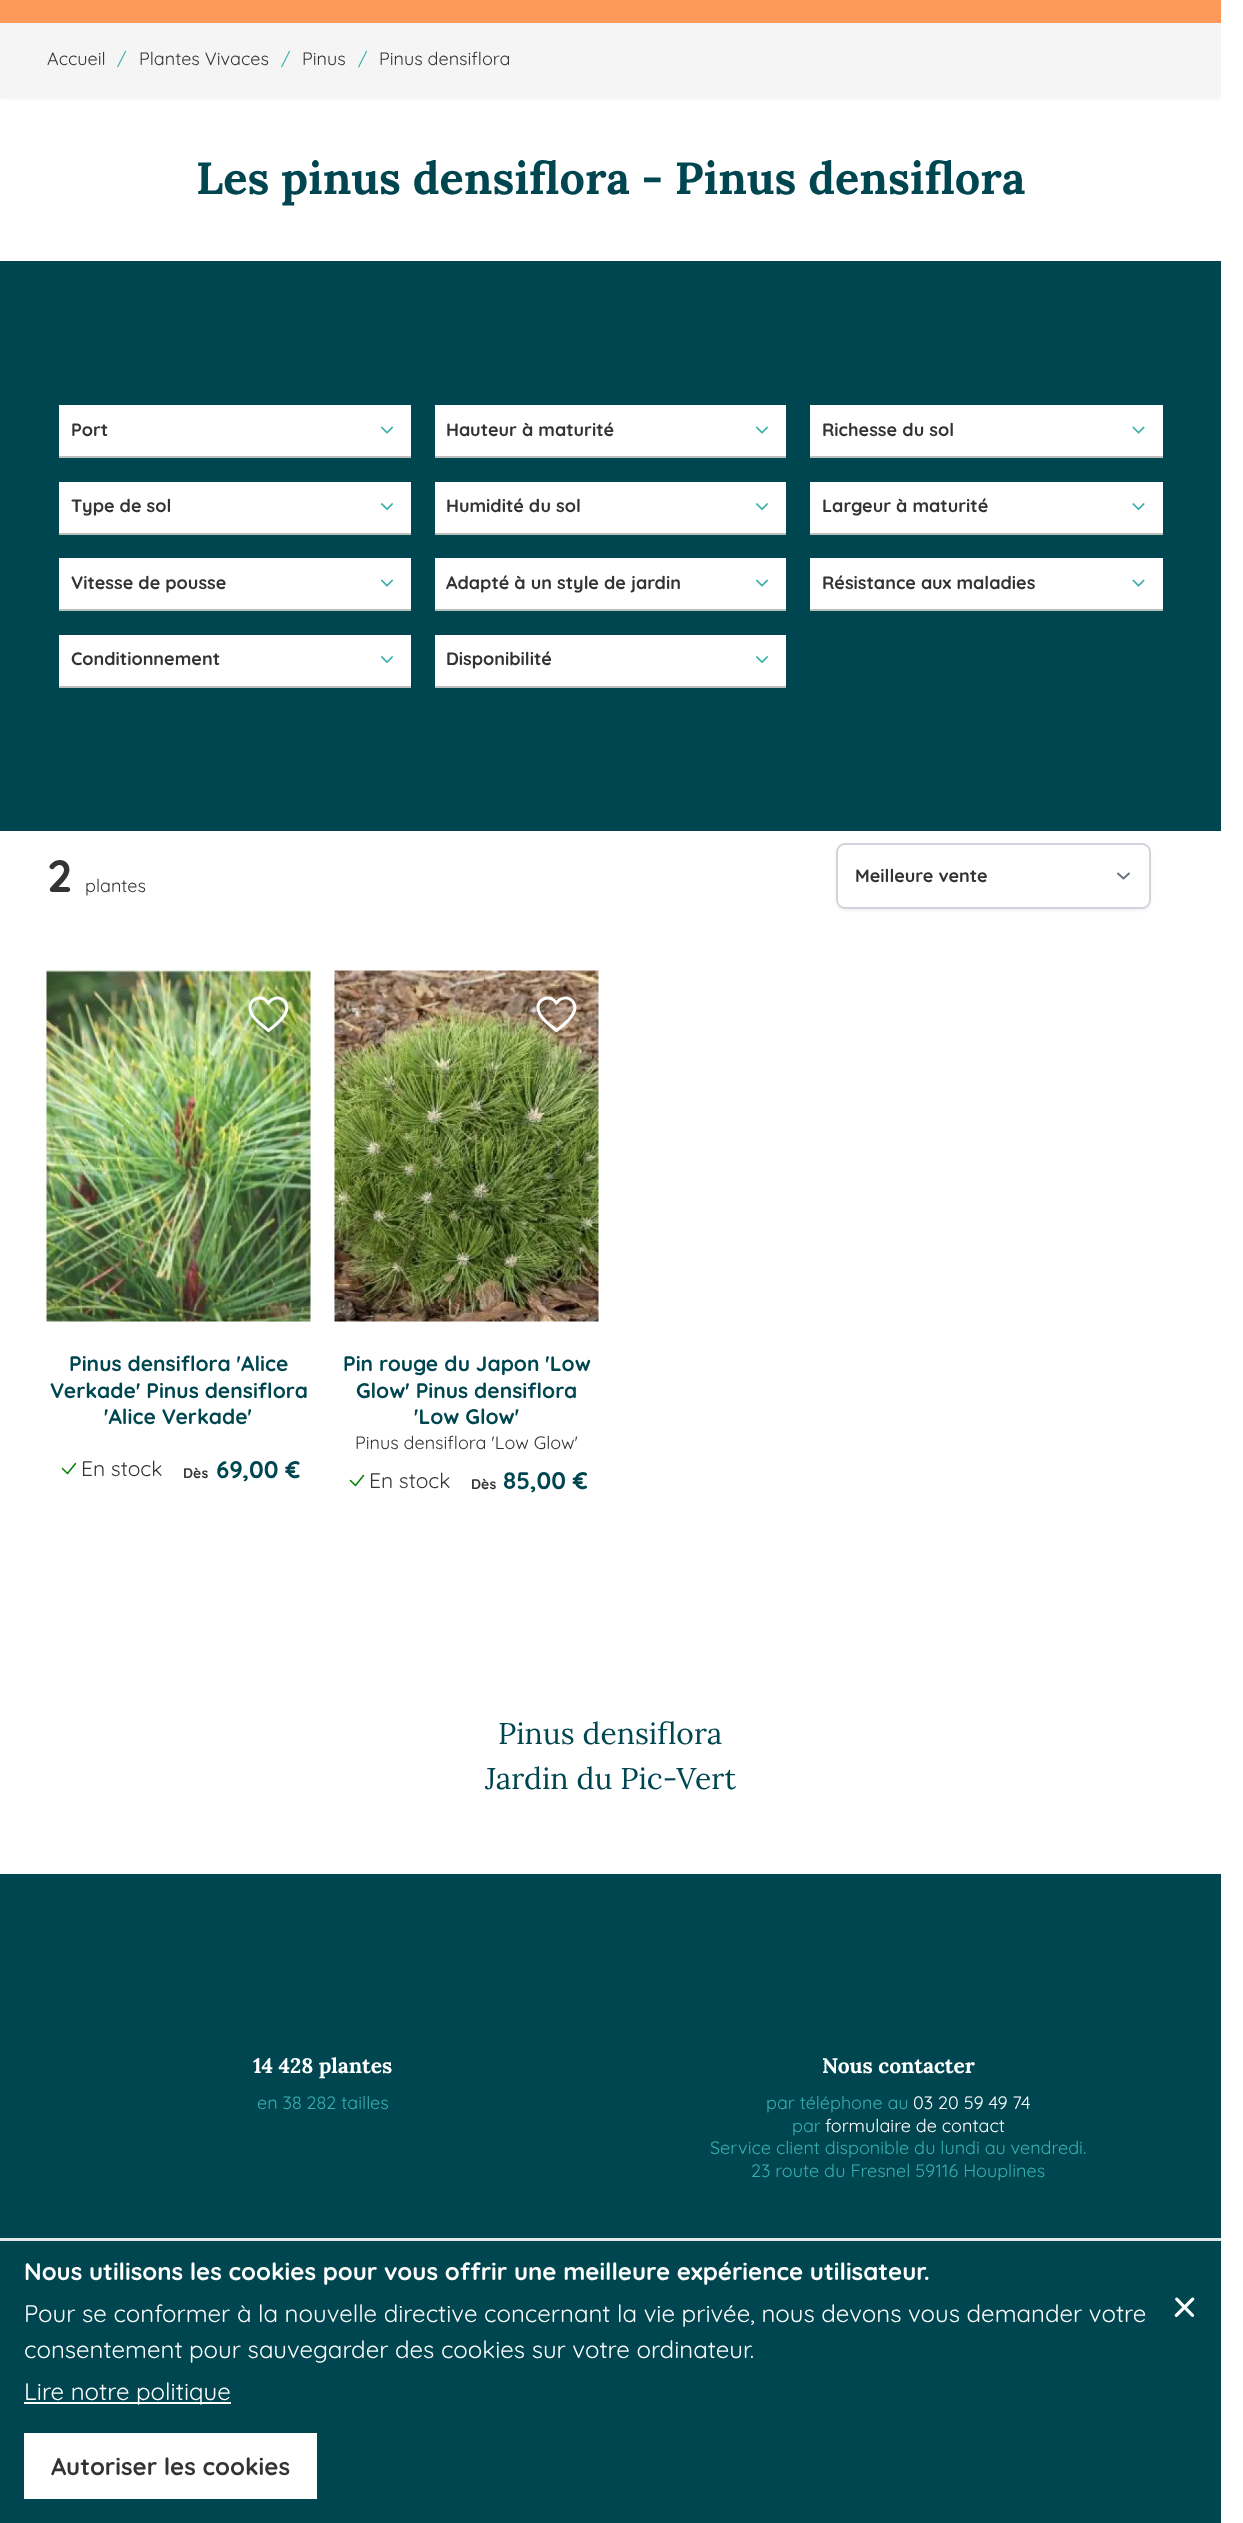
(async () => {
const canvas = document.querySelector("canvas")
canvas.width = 1243
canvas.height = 2523
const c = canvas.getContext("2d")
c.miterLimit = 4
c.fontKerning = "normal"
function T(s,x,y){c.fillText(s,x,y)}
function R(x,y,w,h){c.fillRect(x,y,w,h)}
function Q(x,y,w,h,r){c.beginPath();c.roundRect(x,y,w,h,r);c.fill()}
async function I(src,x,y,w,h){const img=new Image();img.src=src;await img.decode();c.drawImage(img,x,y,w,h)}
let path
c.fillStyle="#fff"
R(0,0,1243,2523)
c.fillStyle="#0000000d"
c.filter="blur(1.5px)"
c.beginPath()
c.rect(0,24,1221,75)
c.fill()
c.filter="none"
c.fillStyle="#ff9959"
R(0,0,1221,23)
c.fillStyle="#f5f5f5"
R(0,23,1221,75)
c.font="18px Quicksand"
c.fillStyle="#333"
T("Accueil",47,65)
c.fillStyle="#38afab"
T("/",117,65)
c.fillStyle="#333"
T("Plantes Vivaces",139,65)
c.fillStyle="#38afab"
T("/",281,65)
c.fillStyle="#333"
T("Pinus",302,65)
c.fillStyle="#38afab"
T("/",358,65)
c.fillStyle="#333"
T("Pinus densiflora",379,65)
c.fillStyle="#fff"
R(1221,24,1,75)
c.font="bold 45px Lora"
c.fillStyle="#004650"
T("Les pinus densiflora - Pinus densiflora",196,194)
R(0,261,1221,570)
c.fillStyle="#bbc0bc"
R(59,456,352,2)
c.fillStyle="#fff"
R(59,405,352,51)
c.font="bold 18px Quicksand"
c.fillStyle="#333"
T("Port",71,436)
await I("1.png",380,426,14,8)
c.fillStyle="#bbc0bc"
R(435,456,351,2)
c.fillStyle="#fff"
R(435,405,351,51)
c.fillStyle="#333"
T("Hauteur à maturité",446,436)
await I("1.png",755,426,14,8)
c.fillStyle="#bbc0bc"
R(810,456,353,2)
c.fillStyle="#fff"
R(810,405,353,51)
c.fillStyle="#333"
T("Richesse du sol",822,436)
await I("2.png",1132,426,13,8)
c.fillStyle="#bbc0bc"
R(59,533,352,2)
c.fillStyle="#fff"
R(59,482,352,51)
c.fillStyle="#333"
T("Type de sol",71,512)
await I("3.png",380,503,14,8)
c.fillStyle="#bbc0bc"
R(435,533,351,2)
c.fillStyle="#fff"
R(435,482,351,51)
c.fillStyle="#333"
T("Humidité du sol",446,512)
await I("3.png",755,503,14,8)
c.fillStyle="#bbc0bc"
R(810,533,353,2)
c.fillStyle="#fff"
R(810,482,353,51)
c.fillStyle="#333"
T("Largeur à maturité",822,512)
await I("4.png",1132,503,13,8)
c.fillStyle="#bbc0bc"
R(59,609,352,2)
c.fillStyle="#fff"
R(59,558,352,51)
c.fillStyle="#333"
T("Vitesse de pousse",71,589)
await I("1.png",380,579,14,8)
c.fillStyle="#bbc0bc"
R(435,609,351,2)
c.fillStyle="#fff"
R(435,558,351,51)
c.fillStyle="#333"
T("Adapté à un style de jardin",446,589)
await I("1.png",755,579,14,8)
c.fillStyle="#bbc0bc"
R(810,609,353,2)
c.fillStyle="#fff"
R(810,558,353,51)
c.fillStyle="#333"
T("Résistance aux maladies",822,589)
await I("2.png",1132,579,13,8)
c.fillStyle="#bbc0bc"
R(59,686,352,2)
c.fillStyle="#fff"
R(59,635,352,51)
c.fillStyle="#333"
T("Conditionnement",71,665)
await I("3.png",380,656,14,8)
c.fillStyle="#bbc0bc"
R(435,686,351,2)
c.fillStyle="#fff"
R(435,635,351,51)
c.fillStyle="#333"
T("Disponibilité",446,665)
await I("3.png",755,656,14,8)
c.font="bold 45px Quicksand"
T("2",47,892)
c.font="18px Quicksand"
T("plantes",85,892)
c.fillStyle="#0000000d"
c.filter="blur(1.5px)"
c.beginPath()
c.roundRect(836,845,315,66,9)
c.fill()
c.filter="none"
c.fillStyle="#fff"
Q(836,843,315,66,9)
path = new Path2D("M1118 873.5l5.5 5l5.5-5")
c.strokeStyle="#6b7280"
c.lineWidth=2
c.lineCap="round"
c.lineJoin="round"
c.stroke(path)
c.beginPath()
c.roundRect(837,844,313,64,8)
c.strokeStyle="#d1d5db"
c.lineJoin="miter"
c.stroke()
c.font="bold 18px Quicksand"
c.fillStyle="#333"
T("Meilleure vente",855,882)
await I("5.png",46,970,265,352)
path = new Path2D("M250 1007.5c0-7 7-11 13.5-9c2 1 3.5 2.5 5 4.5c1-1.5 2-2.5 3.5-3.5c10-5.5 18.5 4.5 13 14.5c-3.5 7-10.5 11.5-16.5 16.5c-7-6-18.5-13.5-18.5-23z")
c.strokeStyle="#fff"
c.lineWidth=3
c.lineJoin="round"
c.stroke(path)
c.font="bold 21px Quicksand"
c.fillStyle="#004650"
T("Pinus densiflora 'Alice",69,1371)
T("Verkade' Pinus densiflora",50,1398)
T("'Alice Verkade'",104,1424)
path = new Path2D("M62.5 1468.5l5 5l8-10")
c.strokeStyle="#008000"
c.lineWidth=1.5
c.stroke(path)
c.font="21px Quicksand"
c.fillStyle="#333"
T("En stock",81,1476)
c.font="bold 14px Quicksand"
T("Dès",183,1478)
c.font="bold 24px Quicksand"
c.fillStyle="#004650"
T("69,00 €",216,1478)
await I("6.png",334,970,265,352)
path = new Path2D("M538 1007.5c0-7 7-11 13.5-9c2 1 3.5 2.5 5 4.5c1-1.5 2-2.5 3.5-3.5c10-5.5 18.5 4.5 13 14.5c-3.5 7-10.5 11.5-16.5 16.5c-7-6-18.5-13.5-18.5-23z")
c.strokeStyle="#fff"
c.lineWidth=3
c.stroke(path)
c.font="bold 21px Quicksand"
T("Pin rouge du Japon 'Low",343,1371)
T("Glow' Pinus densiflora",356,1398)
T("'Low Glow'",414,1424)
c.font="18px Quicksand"
c.fillStyle="#333"
T("Pinus densiflora 'Low Glow'",355,1449)
path = new Path2D("M350.5 1480.5l5 5l8-10")
c.strokeStyle="#008000"
c.lineWidth=1.5
c.stroke(path)
c.font="21px Quicksand"
T("En stock",369,1488)
c.font="bold 14px Quicksand"
T("Dès",471,1489)
c.font="bold 24px Quicksand"
c.fillStyle="#004650"
T("85,00 €",503,1489)
c.font="30px Lora"
T("Pinus densiflora",498,1744)
T("Jardin du Pic-Vert",485,1789)
R(0,1874,1221,364)
c.font="bold 21px Lora"
c.fillStyle="#fff"
T("14 428 plantes",253,2073)
c.font="18px Quicksand"
c.fillStyle="#38afab"
T("en 38 282 tailles",257,2109)
c.font="bold 21px Lora"
c.fillStyle="#fff"
T("Nous contacter",822,2073)
c.font="18px Quicksand"
c.fillStyle="#38afab"
T("par téléphone au",766,2109)
c.fillStyle="#fff"
T("03 20 59 49 74",913,2109)
c.fillStyle="#38afab"
T("par",792,2132)
c.fillStyle="#fff"
T("formulaire de contact",825,2132)
c.fillStyle="#38afab"
T("Service client disponible du lundi au vendredi.",710,2154)
T("23 route du Fresnel 59116 Houplines",751,2177)
c.fillStyle="#004650"
R(0,2241,1221,282)
c.fillStyle="#e5e7eb"
R(0,2238,1221,3)
c.font="bold 24px Quicksand"
c.fillStyle="#fff"
T("Nous utilisons les cookies pour vous offrir une meilleure expérience utilisateur.",24,2280)
c.font="24px Quicksand"
T("Pour se conformer à la nouvelle directive concernant la vie privée, nous devons vous demander votre",24,2322)
T("consentement pour sauvegarder des cookies sur votre ordinateur.",24,2358)
R(24,2402,207,2)
T("Lire notre politique",24,2400)
R(24,2433,293,66)
c.font="bold 24px Quicksand"
c.fillStyle="#333"
T("Autoriser les cookies",51,2475)
c.font="54px Quicksand"
c.fillStyle="#fff"
T("×",1172,2325)
})()
